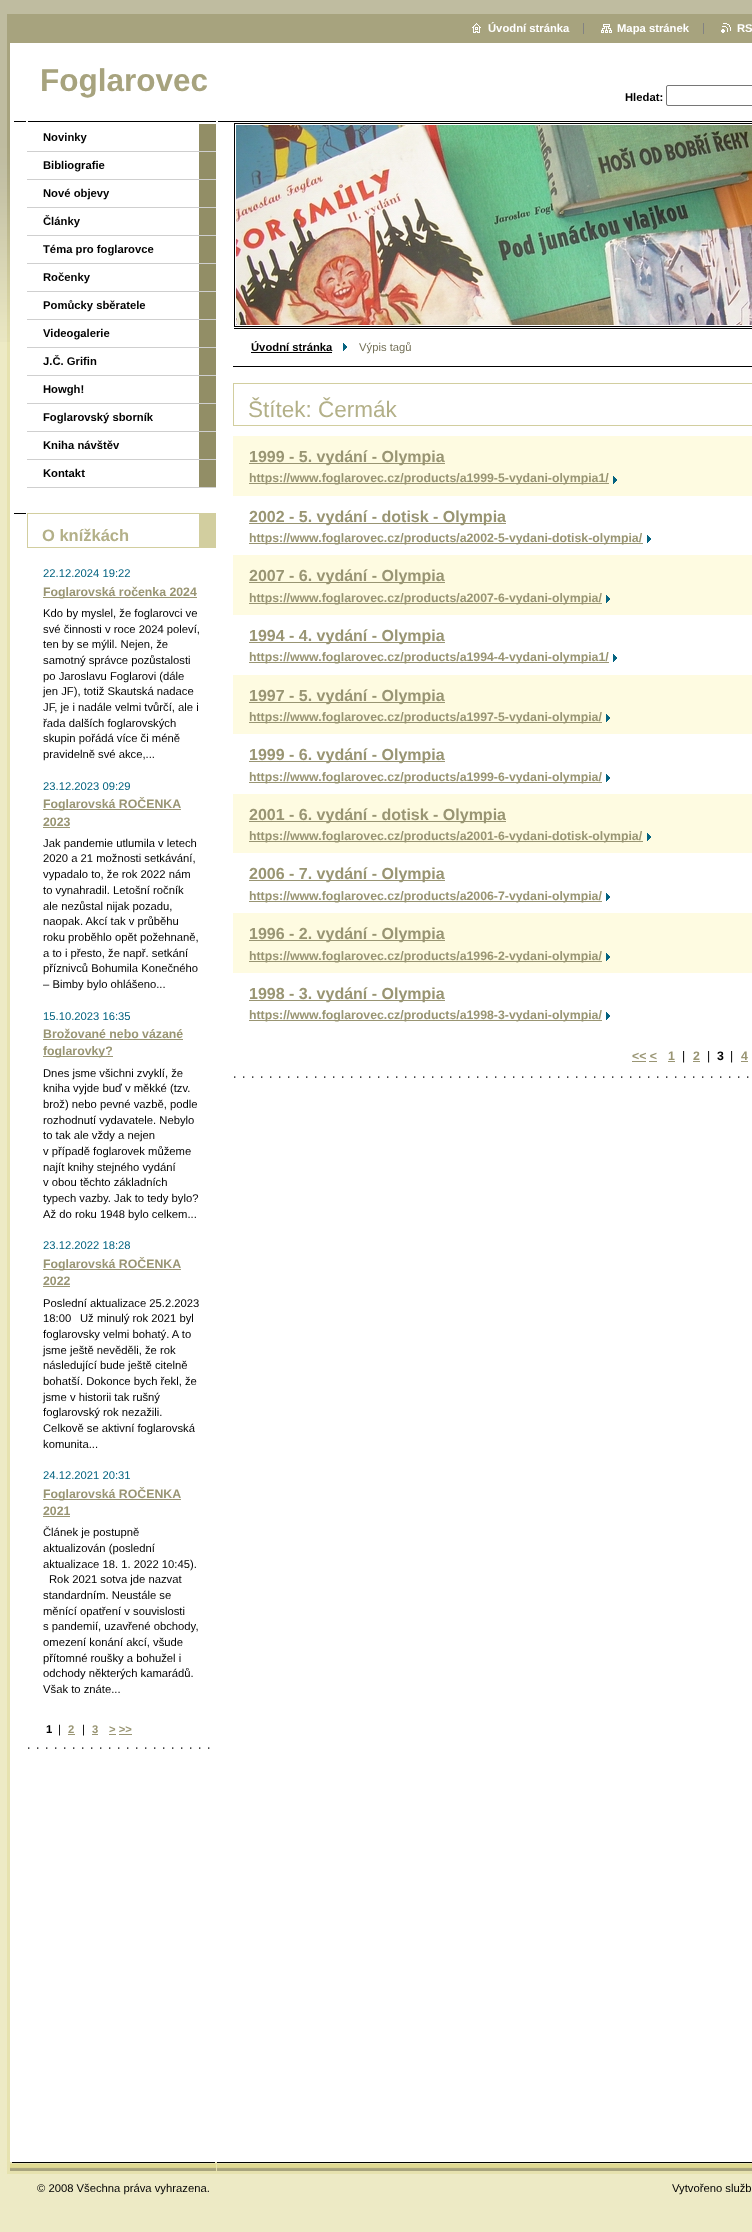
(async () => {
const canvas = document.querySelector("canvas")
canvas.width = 752
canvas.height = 2232
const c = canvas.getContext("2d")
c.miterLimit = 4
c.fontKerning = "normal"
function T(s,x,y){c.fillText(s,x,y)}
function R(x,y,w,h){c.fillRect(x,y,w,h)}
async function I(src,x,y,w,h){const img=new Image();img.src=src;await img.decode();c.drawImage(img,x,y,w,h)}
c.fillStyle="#edeac5"
R(0,0,752,2232)
await I("1.png",7,342,745,1820)
await I("2.png",0,0,10,342)
c.fillStyle="#fff"
R(10,43,742,299)
c.fillStyle="#bfbca0"
R(10,0,742,14)
c.fillStyle="#a7a37e"
R(10,14,742,29)
await I("3.png",472,23,9,10)
c.font="bold 11.25px Liberation Sans"
c.fillStyle="#fff"
T("Úvodní stránka",488,32)
await I("4.png",601,24,11,9)
T("Mapa stránek",617,32)
c.fillStyle="#828282"
R(583,23,1,11)
await I("5.png",721,23,10,10)
c.fillStyle="#fff"
T("RS",737,32)
c.fillStyle="#828282"
R(703,23,1,11)
c.font="bold 31.5px Liberation Sans"
c.fillStyle="#a7a37e"
T("Foglarovec",40,91)
c.font="bold 11.25px Liberation Sans"
c.fillStyle="#000"
T("Hledat:",625,101)
c.beginPath()
c.roundRect(666.5,85.5,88,20,1.5)
c.strokeStyle="#767676"
c.stroke()
await I("6.png",14,121,202,1)
c.fillStyle="#928e66"
R(199,124,17,363)
c.fillStyle="#cfcfcf"
R(27,151,189,1)
c.fillStyle="#000"
T("Novinky",43,141)
c.fillStyle="#cfcfcf"
R(27,179,189,1)
c.fillStyle="#000"
T("Bibliografie",43,169)
c.fillStyle="#cfcfcf"
R(27,207,189,1)
c.fillStyle="#000"
T("Nové objevy",43,197)
c.fillStyle="#cfcfcf"
R(27,235,189,1)
c.fillStyle="#000"
T("Články",43,225)
c.fillStyle="#cfcfcf"
R(27,263,189,1)
c.fillStyle="#000"
T("Téma pro foglarovce",43,253)
c.fillStyle="#cfcfcf"
R(27,291,189,1)
c.fillStyle="#000"
T("Ročenky",43,281)
c.fillStyle="#cfcfcf"
R(27,319,189,1)
c.fillStyle="#000"
T("Pomůcky sběratele",43,309)
c.fillStyle="#cfcfcf"
R(27,347,189,1)
c.fillStyle="#000"
T("Videogalerie",43,337)
c.fillStyle="#cfcfcf"
R(27,375,189,1)
c.fillStyle="#000"
T("J.Č. Grifin",43,365)
c.fillStyle="#cfcfcf"
R(27,403,189,1)
c.fillStyle="#000"
T("Howgh!",43,393)
c.fillStyle="#cfcfcf"
R(27,431,189,1)
c.fillStyle="#000"
T("Foglarovský sborník",43,421)
c.fillStyle="#cfcfcf"
R(27,459,189,1)
c.fillStyle="#000"
T("Kniha návštěv",43,449)
c.fillStyle="#cfcfcf"
R(27,487,189,1)
c.fillStyle="#000"
T("Kontakt",43,477)
R(14,513,12,1)
c.fillStyle="#d2ce9f"
R(27,513,172,1)
R(199,513,17,34)
R(27,547,189,1)
R(27,513,1,35)
c.font="bold 16.5px Liberation Sans"
c.fillStyle="#b3b088"
T("O knížkách",42,541)
c.font="11.25px Liberation Sans"
c.fillStyle="#046380"
T("22.12.2024 19:22",43,577)
c.fillStyle="#999573"
R(43,597,154,1)
c.font="bold 12.3px Liberation Sans"
T("Foglarovská ročenka 2024",43,596)
c.font="11.25px Liberation Sans"
c.fillStyle="#000"
T("Kdo by myslel, že foglarovci ve",43,617)
T("své činnosti v roce 2024 poleví,",43,633)
T("ten by se mýlil. Nejen, že",43,648)
T("samotný správce pozůstalosti",43,664)
T("po Jaroslavu Foglarovi (dále",43,680)
T("jen JF), totiž Skautská nadace",43,695)
T("JF, je i nadále velmi tvůrčí, ale i",43,711)
T("řada dalších foglarovských",43,727)
T("skupin pořádá více či méně",43,742)
T("pravidelně své akce,...",43,758)
c.fillStyle="#046380"
T("23.12.2023 09:29",43,790)
c.fillStyle="#999573"
R(43,809,138,1)
c.font="bold 12.3px Liberation Sans"
T("Foglarovská ROČENKA",43,808)
T("2023",43,826)
R(43,827,27,1)
c.font="11.25px Liberation Sans"
c.fillStyle="#000"
T("Jak pandemie utlumila v letech",43,847)
T("2020 a 21 možnosti setkávání,",43,862)
T("vypadalo to, že rok 2022 nám",43,878)
T("to vynahradil. Letošní ročník",43,894)
T("ale nezůstal nijak pozadu,",43,910)
T("naopak. Akcí tak v průběhu",43,925)
T("roku proběhlo opět požehnaně,",43,941)
T("a to i přesto, že např. setkání",43,957)
T("příznivců Bohumila Konečného",43,972)
T("– Bimby bylo ohlášeno...",43,988)
c.fillStyle="#046380"
T("15.10.2023 16:35",43,1020)
c.font="bold 12.3px Liberation Sans"
c.fillStyle="#999573"
T("Brožované nebo vázané",43,1038)
R(43,1039,140,1)
R(43,1056,70,1)
T("foglarovky?",43,1055)
c.font="11.25px Liberation Sans"
c.fillStyle="#000"
T("Dnes jsme všichni zvyklí, že",43,1077)
T("kniha vyjde buď v měkké (tzv.",43,1092)
T("brož) nebo pevné vazbě, podle",43,1108)
T("rozhodnutí vydavatele. Nebylo",43,1124)
T("to tak ale vždy a nejen",43,1139)
T("v případě foglarovek můžeme",43,1155)
T("najít knihy stejného vydání",43,1171)
T("v obou těchto základních",43,1186)
T("typech vazby. Jak to tedy bylo?",43,1202)
T("Až do roku 1948 bylo celkem...",43,1218)
c.fillStyle="#046380"
T("23.12.2022 18:28",43,1249)
c.fillStyle="#999573"
R(43,1269,138,1)
c.font="bold 12.3px Liberation Sans"
T("Foglarovská ROČENKA",43,1268)
T("2022",43,1285)
R(43,1286,27,1)
c.font="11.25px Liberation Sans"
c.fillStyle="#000"
T("Poslední aktualizace 25.2.2023",43,1307)
T("18:00",43,1322)
T("Už minulý rok 2021 byl",80,1322)
T("foglarovsky velmi bohatý. A to",43,1338)
T("jsme ještě nevěděli, že rok",43,1354)
T("následující bude ještě citelně",43,1369)
T("bohatší. Dokonce bych řekl, že",43,1385)
T("jsme v historii tak rušný",43,1401)
T("foglarovský rok nezažili.",43,1416)
T("Celkově se aktivní foglarovská",43,1432)
T("komunita...",43,1448)
c.fillStyle="#046380"
T("24.12.2021 20:31",43,1479)
c.fillStyle="#999573"
R(43,1499,138,1)
c.font="bold 12.3px Liberation Sans"
T("Foglarovská ROČENKA",43,1498)
T("2021",43,1515)
R(43,1516,27,1)
c.font="11.25px Liberation Sans"
c.fillStyle="#000"
T("Článek je postupně",43,1536)
T("aktualizován (poslední",43,1552)
T("aktualizace 18. 1. 2022 10:45).",43,1568)
T("Rok 2021 sotva jde nazvat",49,1583)
T("standardním. Neustále se",43,1599)
T("měnící opatření v souvislosti",43,1615)
T("s pandemií, uzavřené obchody,",43,1630)
T("omezení konání akcí, všude",43,1646)
T("přítomné roušky a bohužel i",43,1662)
T("odchody některých kamarádů.",43,1677)
T("Však to znáte...",43,1693)
await I("7.png",28,1747,182,2)
c.font="bold 11.25px Liberation Sans"
T("1",46,1733)
c.font="11.25px Liberation Sans"
T("|",58,1733)
c.font="bold 11.25px Liberation Sans"
c.fillStyle="#999573"
T("2",68,1733)
R(68,1734,7,1)
c.font="11.25px Liberation Sans"
c.fillStyle="#000"
T("|",82,1733)
c.font="bold 11.25px Liberation Sans"
c.fillStyle="#999573"
T("3",92,1733)
R(92,1734,6,1)
T("> >>",109,1733)
R(109,1734,7,1)
R(119,1734,13,1)
c.fillStyle="#000"
R(218,121,534,1)
R(234,328,518,1)
c.strokeStyle="#000"
c.strokeRect(234.5,123.5,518,203)
await I("8.png",236,125,516,200)
R(233,366,519,1)
T("Úvodní stránka",251,351)
R(251,352,81,1)
await I("9.png",343,343,4,8)
c.font="11.25px Liberation Sans"
c.fillStyle="#747158"
T("Výpis tagů",359,351)
c.fillStyle="#d2ce9f"
R(233,383,519,1)
R(233,425,519,1)
R(233,383,1,43)
c.font="22.5px Liberation Sans"
c.fillStyle="#b3b088"
T("Štítek: Čermák",248,417)
c.fillStyle="#fefbe1"
R(233,436,519,60)
c.fillStyle="#999573"
R(249,463,196,1)
c.font="bold 16px Liberation Sans"
T("1999 - 5. vydání - Olympia",249,462)
R(249,483,360,1)
c.font="bold 12.3px Liberation Sans"
T("https://www.foglarovec.cz/products/a1999-5-vydani-olympia1/",249,482)
await I("10.png",613,476,4,8)
R(249,523,257,1)
c.font="bold 16px Liberation Sans"
T("2002 - 5. vydání - dotisk - Olympia",249,522)
R(249,543,394,1)
c.font="bold 12.3px Liberation Sans"
T("https://www.foglarovec.cz/products/a2002-5-vydani-dotisk-olympia/",249,542)
await I("9.png",647,535,4,8)
c.fillStyle="#fefbe1"
R(233,555,519,60)
c.fillStyle="#999573"
R(249,582,196,1)
c.font="bold 16px Liberation Sans"
T("2007 - 6. vydání - Olympia",249,581)
R(249,603,353,1)
c.font="bold 12.3px Liberation Sans"
T("https://www.foglarovec.cz/products/a2007-6-vydani-olympia/",249,602)
await I("10.png",606,595,4,8)
R(249,642,196,1)
c.font="bold 16px Liberation Sans"
T("1994 - 4. vydání - Olympia",249,641)
R(249,662,360,1)
c.font="bold 12.3px Liberation Sans"
T("https://www.foglarovec.cz/products/a1994-4-vydani-olympia1/",249,661)
await I("9.png",613,654,4,8)
c.fillStyle="#fefbe1"
R(233,675,519,59)
c.fillStyle="#999573"
R(249,702,196,1)
c.font="bold 16px Liberation Sans"
T("1997 - 5. vydání - Olympia",249,701)
R(249,722,353,1)
c.font="bold 12.3px Liberation Sans"
T("https://www.foglarovec.cz/products/a1997-5-vydani-olympia/",249,721)
await I("10.png",606,714,4,8)
R(249,761,196,1)
c.font="bold 16px Liberation Sans"
T("1999 - 6. vydání - Olympia",249,760)
R(249,782,353,1)
c.font="bold 12.3px Liberation Sans"
T("https://www.foglarovec.cz/products/a1999-6-vydani-olympia/",249,781)
await I("9.png",606,774,4,8)
c.fillStyle="#fefbe1"
R(233,794,519,59)
c.fillStyle="#999573"
R(249,821,257,1)
c.font="bold 16px Liberation Sans"
T("2001 - 6. vydání - dotisk - Olympia",249,820)
R(249,841,394,1)
c.font="bold 12.3px Liberation Sans"
T("https://www.foglarovec.cz/products/a2001-6-vydani-dotisk-olympia/",249,840)
await I("10.png",647,833,4,8)
R(249,880,196,1)
c.font="bold 16px Liberation Sans"
T("2006 - 7. vydání - Olympia",249,879)
R(249,901,353,1)
c.font="bold 12.3px Liberation Sans"
T("https://www.foglarovec.cz/products/a2006-7-vydani-olympia/",249,900)
await I("9.png",606,893,4,8)
c.fillStyle="#fefbe1"
R(233,913,519,60)
c.fillStyle="#999573"
R(249,940,196,1)
c.font="bold 16px Liberation Sans"
T("1996 - 2. vydání - Olympia",249,939)
R(249,961,353,1)
c.font="bold 12.3px Liberation Sans"
T("https://www.foglarovec.cz/products/a1996-2-vydani-olympia/",249,960)
await I("10.png",606,953,4,8)
R(249,1000,196,1)
c.font="bold 16px Liberation Sans"
T("1998 - 3. vydání - Olympia",249,999)
R(249,1020,353,1)
c.font="bold 12.3px Liberation Sans"
T("https://www.foglarovec.cz/products/a1998-3-vydani-olympia/",249,1019)
await I("9.png",606,1012,4,8)
await I("11.png",234,1076,515,2)
T("<< <",632,1060)
R(632,1061,14,1)
T("1",668,1060)
R(668,1061,7,1)
c.font="12.3px Liberation Sans"
c.fillStyle="#000"
T("|",682,1060)
c.font="bold 12.3px Liberation Sans"
c.fillStyle="#999573"
T("2",693,1060)
R(693,1061,7,1)
c.font="12.3px Liberation Sans"
c.fillStyle="#000"
T("|",707,1060)
c.font="bold 12.3px Liberation Sans"
T("3",717,1060)
c.font="12.3px Liberation Sans"
T("|",730,1060)
c.font="bold 12.3px Liberation Sans"
c.fillStyle="#999573"
T("4",741,1060)
R(741,1061,7,1)
R(649,1061,8,1)
await I("12.png",7,2162,745,12)
c.font="11.25px Liberation Sans"
c.fillStyle="#000"
T("© 2008 Všechna práva vyhrazena.",37,2192)
T("Vytvořeno služb",672,2192)
})()
